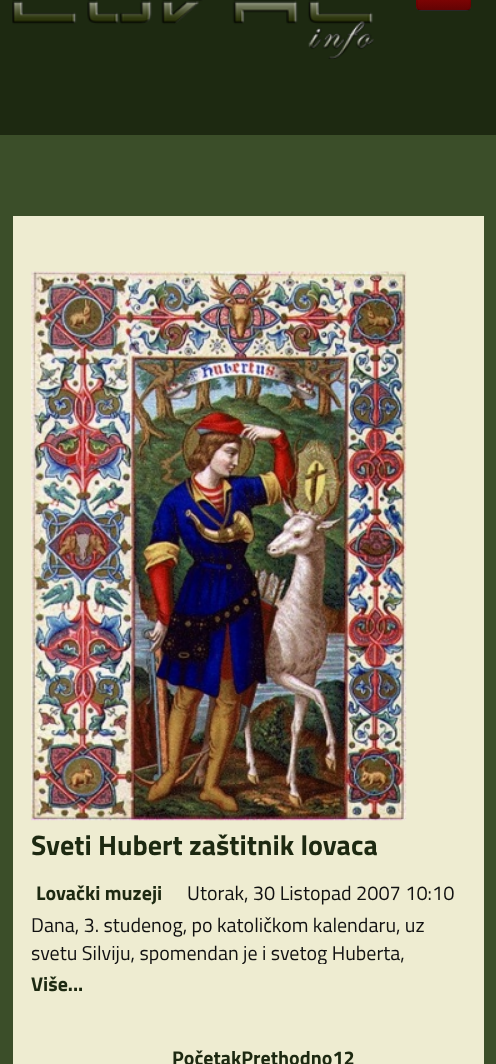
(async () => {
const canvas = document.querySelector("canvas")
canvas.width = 496
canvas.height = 1064
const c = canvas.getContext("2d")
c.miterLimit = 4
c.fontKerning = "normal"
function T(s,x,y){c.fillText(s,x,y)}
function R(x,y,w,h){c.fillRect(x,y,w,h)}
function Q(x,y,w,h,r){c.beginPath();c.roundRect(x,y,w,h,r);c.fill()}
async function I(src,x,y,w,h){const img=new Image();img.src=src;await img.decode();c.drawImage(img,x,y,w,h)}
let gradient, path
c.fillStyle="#1d2911"
R(0,0,496,1064)
await I("1.png",12,0,362,59)
c.fillStyle="#363636"
Q(416,-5,55,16,5)
c.save()
c.beginPath()
c.roundRect(416,-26,55,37,5)
c.clip()
gradient = c.createLinearGradient(444,-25,444,10)
gradient.addColorStop(0,"#bb0606")
gradient.addColorStop(1,"#630303")
c.fillStyle = gradient
R(416,0,55,10)
c.restore()
path = new Path2D("M469.5 9.5c-1 .5-2 1-3.5 1h-45c-1 0-2-.5-3-1")
c.strokeStyle="#00000040"
c.lineWidth=1.2
c.stroke(path)
path = new Path2D("M418 9.5c-.5-1-1-2-1-3v-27.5c0-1.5 .5-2.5 1-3.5c1-.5 2-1 3-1h45c1.5 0 2.5 .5 3.5 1c.5 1 1 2 1 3.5v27c0 1.5-.5 2.5-1 3.5")
c.strokeStyle="#0000001a"
c.stroke(path)
c.fillStyle="#3b4e29"
R(0,135,496,929)
c.fillStyle="#eeecd1"
R(13,216,471,848)
await I("2.png",31,271,376,550)
c.font="bold 28.1px Titillium Web"
c.fillStyle="#1d2911"
T("Sveti Hubert zaštitnik lovaca",31,855)
c.font="bold 20px Titillium Web"
T("Lovački muzeji",36,900)
c.font="20px Titillium Web"
c.fillStyle="#111"
T("Utorak, 30 Listopad 2007 10:10",187,900)
T("Dana, 3. studenog, po katoličkom kalendaru, uz",31,932)
c.save()
c.beginPath()
c.rect(31,906,434,58)
c.clip()
T("svetu Silviju, spomendan je i svetog Huberta,",31,960)
c.restore()
c.font="bold 20px Titillium Web"
c.fillStyle="#1d2911"
T("Više...",31,991)
T("PočetakPrethodno12",172,1065)
})()
